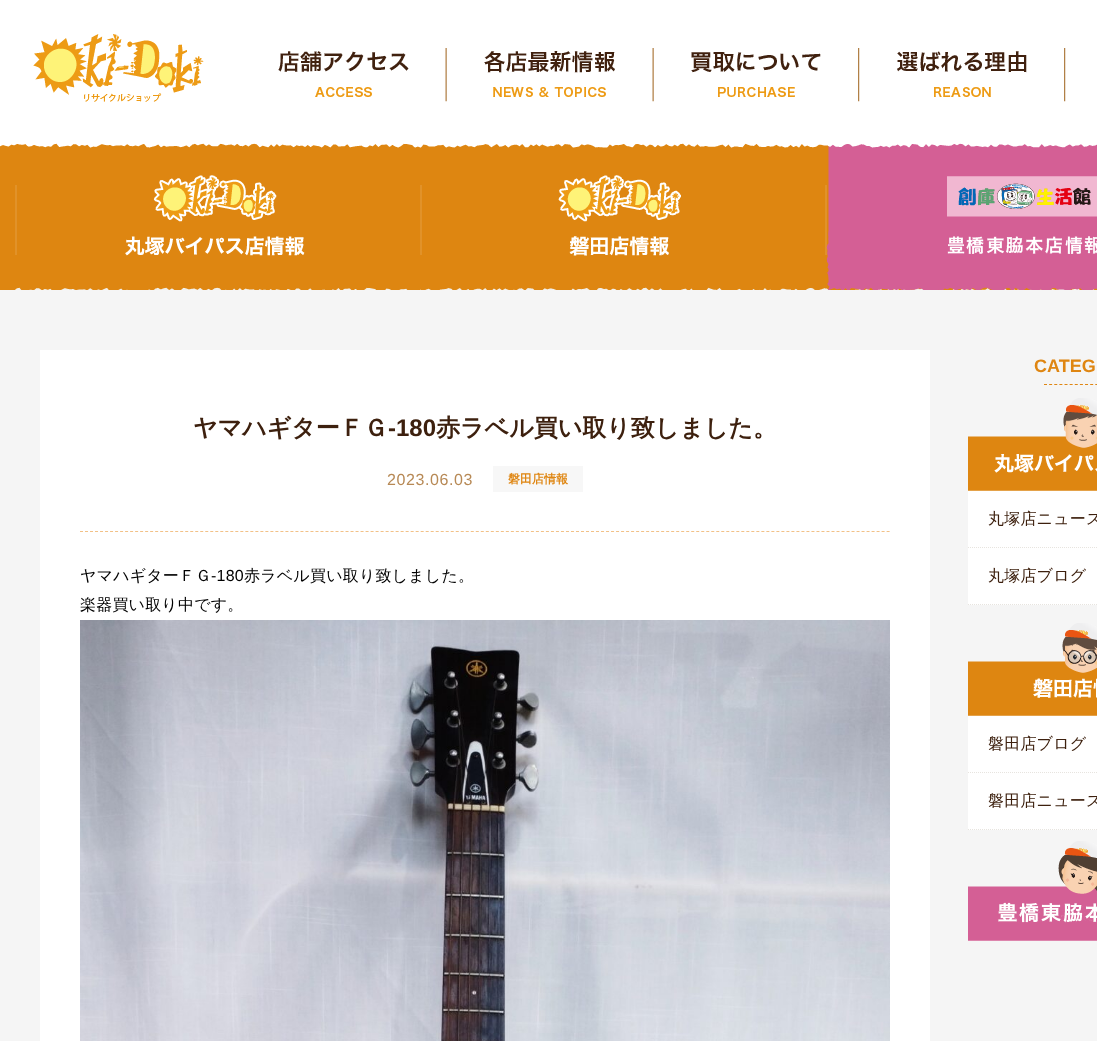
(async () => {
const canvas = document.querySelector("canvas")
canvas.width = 1097
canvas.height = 1041
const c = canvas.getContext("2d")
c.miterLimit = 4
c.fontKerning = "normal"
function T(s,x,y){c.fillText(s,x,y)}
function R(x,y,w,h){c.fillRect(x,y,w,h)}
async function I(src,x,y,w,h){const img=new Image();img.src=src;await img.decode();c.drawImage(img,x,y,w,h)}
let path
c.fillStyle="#fff"
R(0,0,1097,1041)
c.fillStyle="#f2efe8"
R(15,287,1080,3)
await I("4.png",0,143,1097,147)
await I("1.png",0,140,1097,8)
await I("2.png",33,34,171,68)
await I("3.png",278,48,788,54)
c.fillStyle="#e19229"
R(15,185,2,70)
await I("5.png",125,175,180,81)
R(420,185,2,70)
await I("6.png",558,175,123,81)
c.fillStyle="#ffffff1a"
R(825,185,2,70)
await I("7.png",947,176,150,78)
c.fillStyle="#f5f5f5"
R(0,290,1097,751)
c.fillStyle="#fff"
R(40,350,890,691)
path = new Path2D("M80 531.5h810")
c.strokeStyle="#f2c187"
c.setLineDash([3,2.01])
c.stroke(path)
c.font="bold 24px WenQuanYi Zen Hei"
c.fillStyle="#3d200e"
T("ヤマハギターＦＧ",193,436)
c.font="bold 24px Liberation Sans"
T("-180",388,436)
c.font="bold 24px WenQuanYi Zen Hei"
T("赤ラベル買い取り致しました。",436,436)
c.letterSpacing="0.6px"
c.font="16px Liberation Sans"
c.fillStyle="#b78955"
T("2023.06.03",387,485)
c.fillStyle="#f7f7f7"
R(493,466,90,26)
c.letterSpacing="0px"
c.font="bold 12px WenQuanYi Zen Hei"
c.fillStyle="#df8612"
T("磐田店情報",508,483)
c.letterSpacing="0.2px"
c.font="500 16px WenQuanYi Zen Hei"
c.fillStyle="#000"
T("ヤマハギターＦＧ",80,581)
c.font="16px Liberation Sans"
T("-180",211,581)
c.font="500 16px WenQuanYi Zen Hei"
T("赤ラベル買い取り致しました。",244,581)
T("楽器買い取り中です。",80,610)
await I("8.png",80,620,810,421)
c.letterSpacing="0px"
c.font="bold 18px Liberation Sans"
c.fillStyle="#df8612"
T("CATEG",1034,372)
path = new Path2D("M1044 384.5h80")
c.strokeStyle="#df8612"
c.setLineDash([3,2.13])
c.stroke(path)
await I("9.png",968,398,129,93)
c.fillStyle="#fff"
R(968,491,129,114)
path = new Path2D("M968 547.5h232")
c.strokeStyle="#e7e4df"
c.setLineDash([1,1])
c.stroke(path)
c.letterSpacing="0.2px"
c.font="500 16px WenQuanYi Zen Hei"
c.fillStyle="#3d200e"
T("丸塚店ニュース",988,524)
path = new Path2D("M968 604.5h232")
c.stroke(path)
T("丸塚店ブログ",988,581)
await I("10.png",968,623,129,93)
c.fillStyle="#fff"
R(968,716,129,114)
path = new Path2D("M968 772.5h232")
c.stroke(path)
c.fillStyle="#3d200e"
T("磐田店ブログ",988,749)
path = new Path2D("M968 829.5h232")
c.stroke(path)
T("磐田店ニュース",988,806)
await I("11.png",968,841,129,100)
})()
